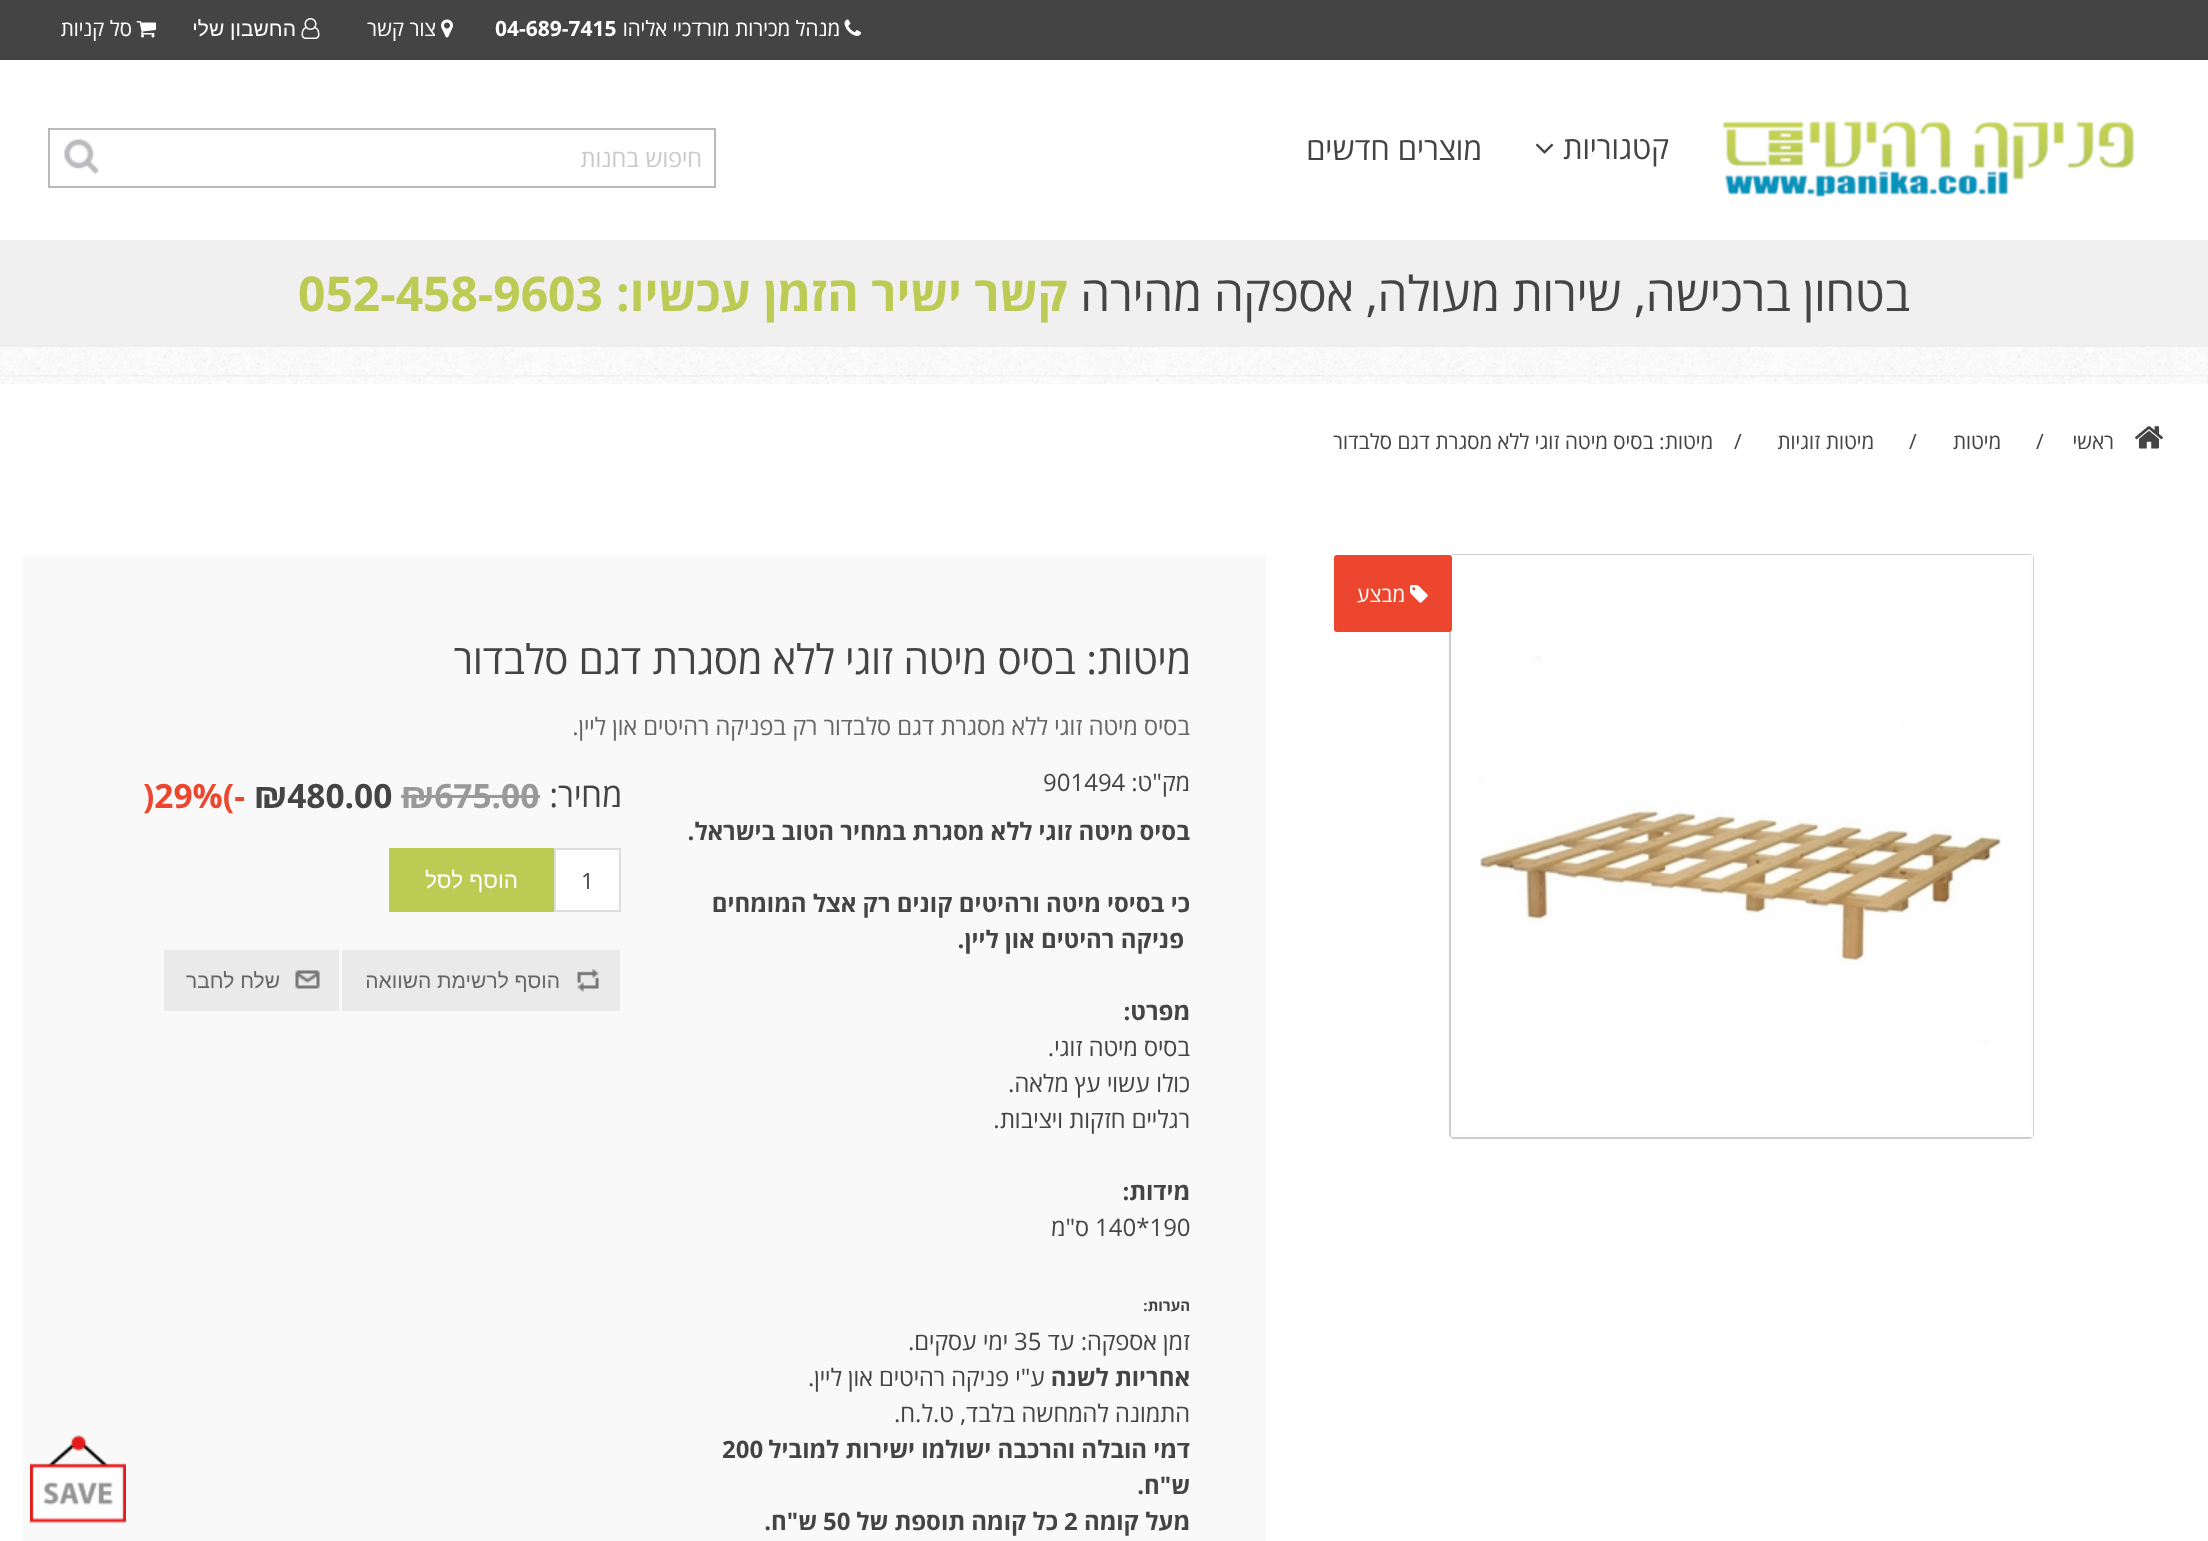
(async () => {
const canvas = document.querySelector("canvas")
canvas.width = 2208
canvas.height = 1541
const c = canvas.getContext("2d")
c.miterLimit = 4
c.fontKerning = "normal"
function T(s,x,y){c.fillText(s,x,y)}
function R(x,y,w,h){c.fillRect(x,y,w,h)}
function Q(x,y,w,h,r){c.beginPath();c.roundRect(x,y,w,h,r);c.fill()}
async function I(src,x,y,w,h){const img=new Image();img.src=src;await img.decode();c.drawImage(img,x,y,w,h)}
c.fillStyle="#fff"
R(0,0,2208,1541)
await I("1.png",0,347,2208,37)
c.fillStyle="#444"
R(0,0,2208,60)
await I("2.png",844,19,17,17)
c.direction="rtl"
c.font="21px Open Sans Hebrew"
c.fillStyle="#fff"
T("מנהל מכירות מורדכיי אליהו",840,36)
c.direction="ltr"
c.font="bold 21px Open Sans Hebrew"
T("04-689-7415",495,36)
await I("3.png",441,19,12,19)
c.direction="rtl"
c.font="21px Open Sans Hebrew"
T("צור קשר",436,36)
await I("4.png",301,18,19,21)
c.font="21px Liberation Sans"
T("החשבון שלי",296,36)
await I("5.png",136,21,20,17)
c.font="21px Open Sans Hebrew"
T("סל קניות",132,36)
await I("6.png",1722,121,413,76)
c.font="31.25px Open Sans Hebrew"
c.fillStyle="#444"
T("קטגוריות",1669,159)
await I("7.png",1535,143,19,11)
T("מוצרים חדשים",1482,160)
c.fillStyle="#bbb9bd"
R(48,128,668,2)
R(714,128,2,60)
R(48,186,668,2)
c.font="24px Open Sans Hebrew"
c.fillStyle="#cacaca"
T("חיפוש בחנות",702,167)
await I("8.png",64,139,35,36)
c.fillStyle="#bbb9bd"
R(48,128,2,60)
c.fillStyle="#f0f0f0"
R(0,240,2208,105)
c.fillStyle="#eee"
R(0,345,2208,2)
c.font="48px Open Sans Hebrew"
c.fillStyle="#444"
T("בטחון ברכישה, שירות מעולה, אספקה מהירה",1910,311)
c.font="bold 48px Open Sans Hebrew"
c.fillStyle="#bbcb54"
T("קשר ישיר הזמן עכשיו:",1068,311)
c.direction="ltr"
T("052-458-9603",298,311)
await I("9.png",2135,426,28,23)
c.direction="rtl"
c.font="21px Open Sans Hebrew"
c.fillStyle="#444"
T("ראשי",2114,449)
c.direction="ltr"
T("/",2036,449)
c.direction="rtl"
T("מיטות",2001,449)
c.direction="ltr"
T("/",1909,449)
c.direction="rtl"
T("מיטות זוגיות",1874,449)
c.direction="ltr"
T("/",1734,449)
c.direction="rtl"
T("מיטות: בסיס מיטה זוגי ללא מסגרת דגם סלבדור",1713,449)
c.beginPath()
c.roundRect(1450,555,583,583,4)
c.strokeStyle="#cecece"
c.lineWidth=2
c.stroke()
c.beginPath()
c.rect(1454,558,576,576)
c.strokeStyle="#fefefe"
c.lineWidth=6
c.stroke()
await I("10.png",1479,656,523,388)
c.fillStyle="#ed462f"
Q(1334,555,118,77,3)
await I("11.png",1410,585,18,18)
c.fillStyle="#fff"
T("מבצע",1405,602)
c.fillStyle="#f9f9f9"
R(23,555,1243,986)
c.font="40.75px Open Sans Hebrew"
c.fillStyle="#444"
T("מיטות: בסיס מיטה זוגי ללא מסגרת דגם סלבדור",1191,674)
c.font="24px Open Sans Hebrew"
c.fillStyle="#666"
T("בסיס מיטה זוגי ללא מסגרת דגם סלבדור רק בפניקה רהיטים און ליין.",1190,735)
c.fillStyle="#444"
T("מק\"ט:",1190,791)
c.direction="ltr"
T("901494",1043,791)
c.direction="rtl"
c.font="bold 24px Open Sans Hebrew"
T("בסיס מיטה זוגי ללא מסגרת במחיר הטוב בישראל.",1190,840)
T("כי בסיסי מיטה ורהיטים קונים רק אצל המומחים",1190,912)
T("פניקה רהיטים און ליין.",1184,948)
T("מפרט:",1190,1020)
c.font="24px Open Sans Hebrew"
T("בסיס מיטה זוגי.",1190,1056)
T("כולו עשוי עץ מלאה.",1190,1092)
T("רגליים חזקות ויציבות.",1190,1128)
c.font="bold 24px Open Sans Hebrew"
T("מידות:",1190,1200)
c.direction="ltr"
c.font="24px Open Sans Hebrew"
T("140*190",1095,1236)
c.direction="rtl"
T("ס\"מ",1089,1236)
c.font="bold 15px Open Sans Hebrew"
T("הערות:",1190,1311)
c.font="24px Open Sans Hebrew"
T("זמן אספקה: עד",1190,1350)
c.direction="ltr"
T("35",1014,1350)
c.direction="rtl"
T("ימי עסקים.",1008,1350)
c.font="bold 24px Open Sans Hebrew"
T("אחריות לשנה",1190,1386)
c.font="24px Open Sans Hebrew"
T("ע\"י פניקה רהיטים און ליין.",1045,1386)
T("התמונה להמחשה בלבד, ט.ל.ח.",1190,1422)
c.font="bold 24px Open Sans Hebrew"
T("דמי הובלה והרכבה ישולמו ישירות למוביל",1190,1458)
c.direction="ltr"
T("200",722,1458)
c.direction="rtl"
T("ש\"ח.",1190,1494)
T("מעל קומה",1190,1530)
c.direction="ltr"
T("2",1064,1530)
c.direction="rtl"
T("כל קומה תוספת של",1058,1530)
c.direction="ltr"
T("50",823,1530)
c.direction="rtl"
T("ש\"ח.",817,1530)
c.font="33.5px Open Sans Hebrew"
T("מחיר:",622,807)
c.direction="ltr"
c.font="bold 33.5px Open Sans Hebrew"
c.fillStyle="#999"
T("₪675.00",401,808)
R(401,795,139,3)
c.fillStyle="#444"
T("₪480.00",254,808)
c.fillStyle="#ed462f"
T(")29%(-",143,808)
c.fillStyle="#fefefe"
c.beginPath()
c.rect(555,849,65,62)
c.fill()
c.strokeStyle="#ddd"
c.lineWidth=2
c.stroke()
c.font="22.5px Open Sans Hebrew"
c.fillStyle="#444"
T("1",581,889)
c.fillStyle="#bbcb54"
R(389,848,165,64)
c.direction="rtl"
c.font="22.5px Liberation Sans"
c.fillStyle="#fff"
T("הוסף לסל",518,888)
c.fillStyle="#eaeaea"
R(342,950,278,61)
await I("12.png",577,969,22,23)
c.font="21px Liberation Sans"
c.fillStyle="#666"
T("הוסף לרשימת השוואה",560,988)
c.fillStyle="#eaeaea"
R(164,950,175,61)
await I("13.png",295,970,25,19)
c.fillStyle="#666"
T("שלח לחבר",280,988)
await I("14.png",30,1435,96,88)
})()
